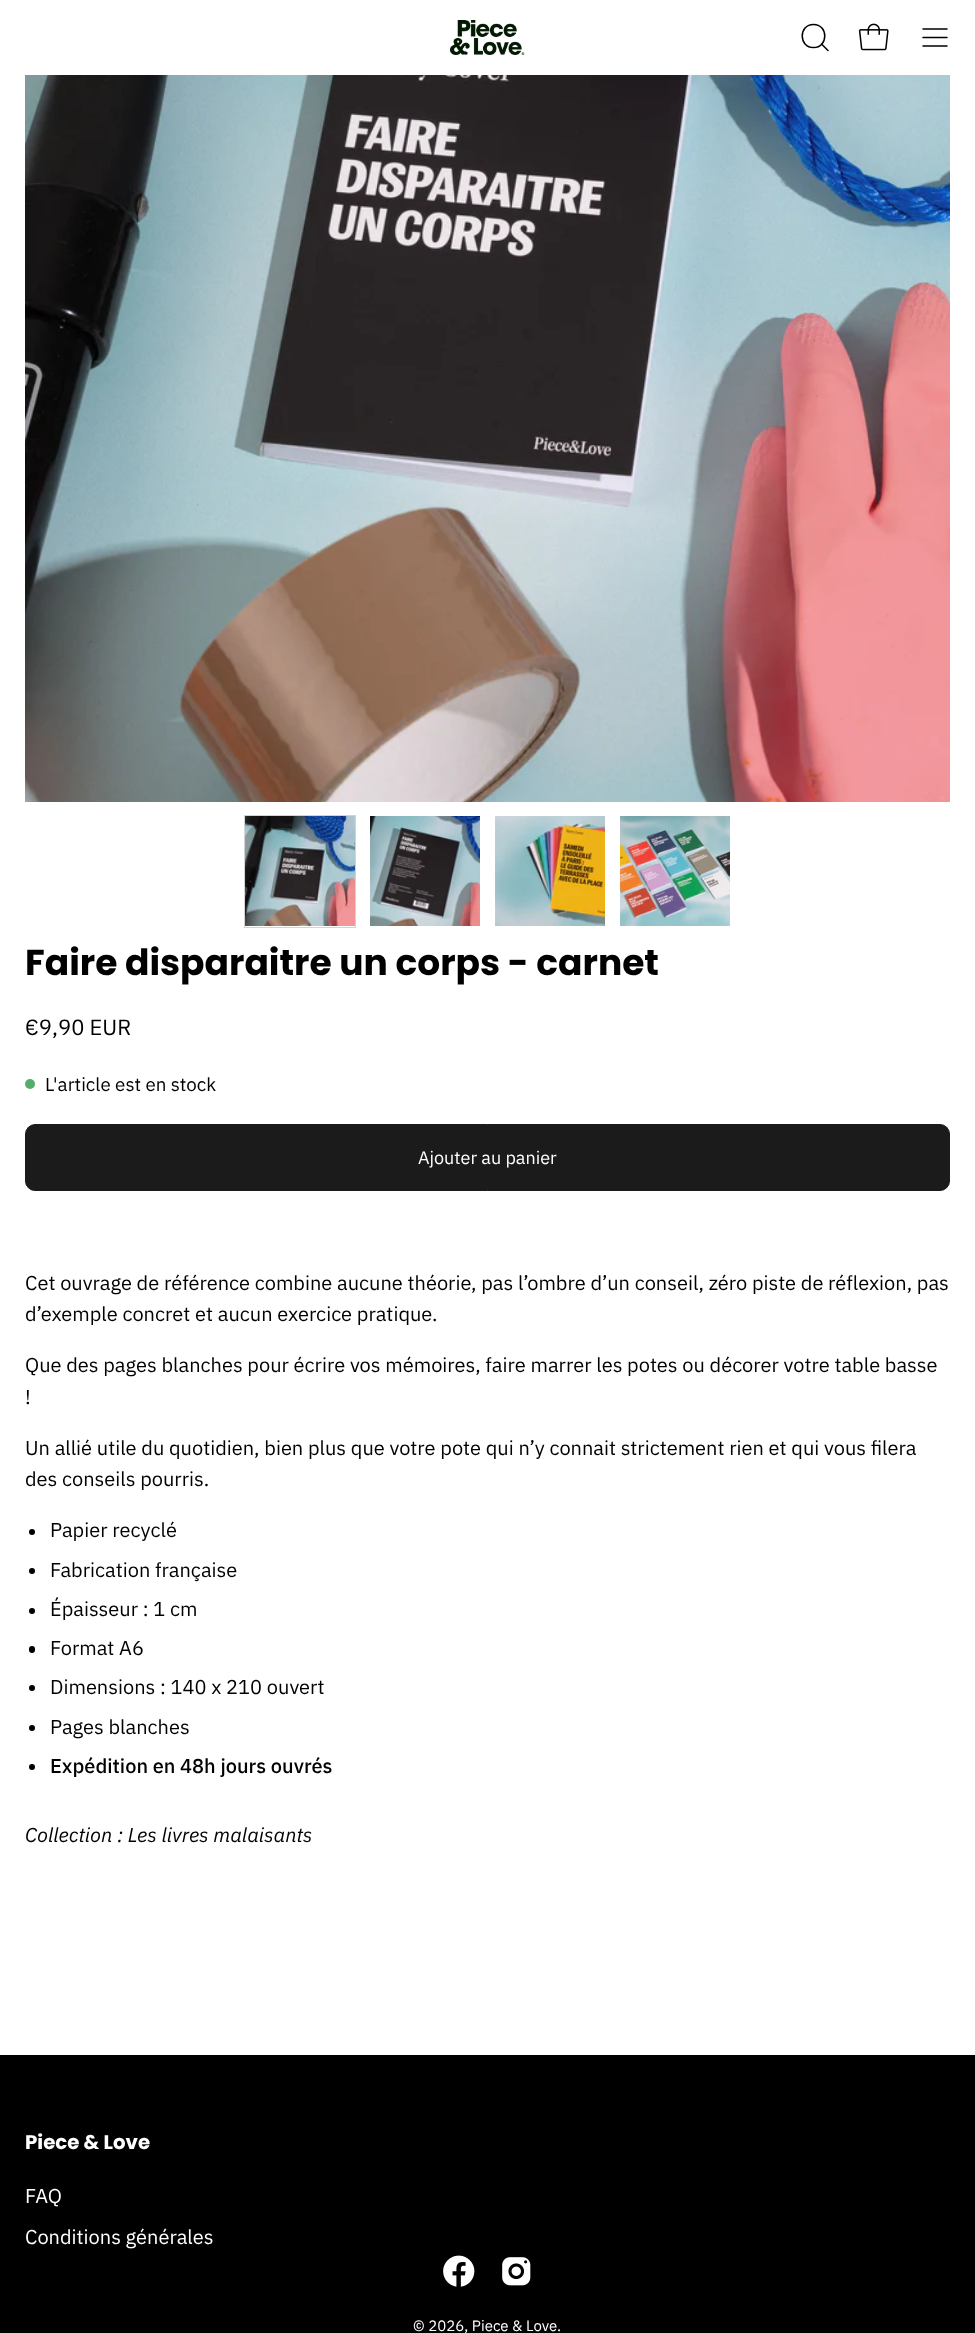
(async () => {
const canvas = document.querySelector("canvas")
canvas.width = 975
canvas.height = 2333
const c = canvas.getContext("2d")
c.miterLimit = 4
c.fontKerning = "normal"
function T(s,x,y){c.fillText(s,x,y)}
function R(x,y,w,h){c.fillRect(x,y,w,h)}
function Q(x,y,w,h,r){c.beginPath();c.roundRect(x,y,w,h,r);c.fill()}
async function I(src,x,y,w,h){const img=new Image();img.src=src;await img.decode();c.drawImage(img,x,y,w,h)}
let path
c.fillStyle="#fff"
R(0,0,975,2333)
await I("1.png",450,20,75,35)
path = new Path2D("M813.5 47.5c15 0 15-23 0-23c-15 0-15 23 0 23zm8-3.5l6.5 6.5")
c.strokeStyle="#000"
c.lineWidth=1.5
c.lineCap="round"
c.lineJoin="round"
c.stroke(path)
await I("2.png",858,23,31,28)
path = new Path2D("M923 37.5h24m-24-8.5h24m-24 17h24")
c.stroke(path)
await I("3.png",25,75,925,727)
c.strokeStyle="#d3d3d3"
c.lineWidth=1
c.lineJoin="miter"
c.strokeRect(244.5,815.5,111,112)
await I("4.png",245,816,110,110)
await I("5.png",370,816,110,110)
await I("6.png",495,816,110,110)
await I("7.png",620,816,110,110)
c.font="bold 36px Poppins"
c.fillStyle="#000"
T("Faire disparaitre un corps - carnet",25,975)
c.font="22px IBM Plex Sans"
T("€9,90 EUR",25,1035)
c.fillStyle="#56ad6a"
c.beginPath()
c.arc(30,1084,5,0,7)
c.fill()
c.font="18.75px IBM Plex Sans"
c.fillStyle="#000"
T("L'article est en stock",45,1091)
c.fillStyle="#1b1b1b"
c.beginPath()
c.roundRect(25.5,1124.5,924,66,9.5)
c.fill()
c.strokeStyle="#1b1b1b"
c.stroke()
c.font="18px IBM Plex Sans"
c.fillStyle="#fff"
T("Ajouter au panier",418,1164)
c.font="20px IBM Plex Sans"
c.fillStyle="#000"
T("Cet ouvrage de référence combine aucune théorie, pas l’ombre d’un conseil, zéro piste de réflexion, pas",25,1290)
T("d’exemple concret et aucun exercice pratique.",25,1321)
T("Que des pages blanches pour écrire vos mémoires, faire marrer les potes ou décorer votre table basse",25,1372)
T("!",25,1404)
T("Un allié utile du quotidien, bien plus que votre pote qui n’y connait strictement rien et qui vous filera",25,1455)
T("des conseils pourris.",25,1486)
c.beginPath()
c.arc(32,1532,3,0,7)
c.fill()
T("Papier recyclé",50,1537)
c.beginPath()
c.arc(32,1571,3,0,7)
c.fill()
T("Fabrication française",50,1577)
c.beginPath()
c.arc(32,1611,3,0,7)
c.fill()
T("Épaisseur : 1 cm",50,1616)
Q(29,1646,6,7,3)
T("Format A6",50,1655)
c.beginPath()
c.arc(32,1688,3,0,7)
c.fill()
T("Dimensions : 140 x 210 ouvert",50,1694)
c.beginPath()
c.arc(32,1728,3,0,7)
c.fill()
T("Pages blanches",50,1734)
c.beginPath()
c.arc(32,1767,3,0,7)
c.fill()
c.font="500 20px IBM Plex Sans"
T("Expédition en 48h jours ouvrés",50,1773)
c.font="italic 20px IBM Plex Sans"
T("Collection : Les livres malaisants",25,1842)
R(0,2055,975,278)
c.font="bold 19.75px Poppins"
c.fillStyle="#fff"
T("Piece & Love",25,2149)
c.font="20px IBM Plex Sans"
T("FAQ",25,2203)
T("Conditions générales",25,2244)
await I("8.png",443,2255,32,32)
await I("9.png",502,2257,29,29)
c.font="15px IBM Plex Sans"
T("© 2026, Piece & Love.",413,2331)
})()
